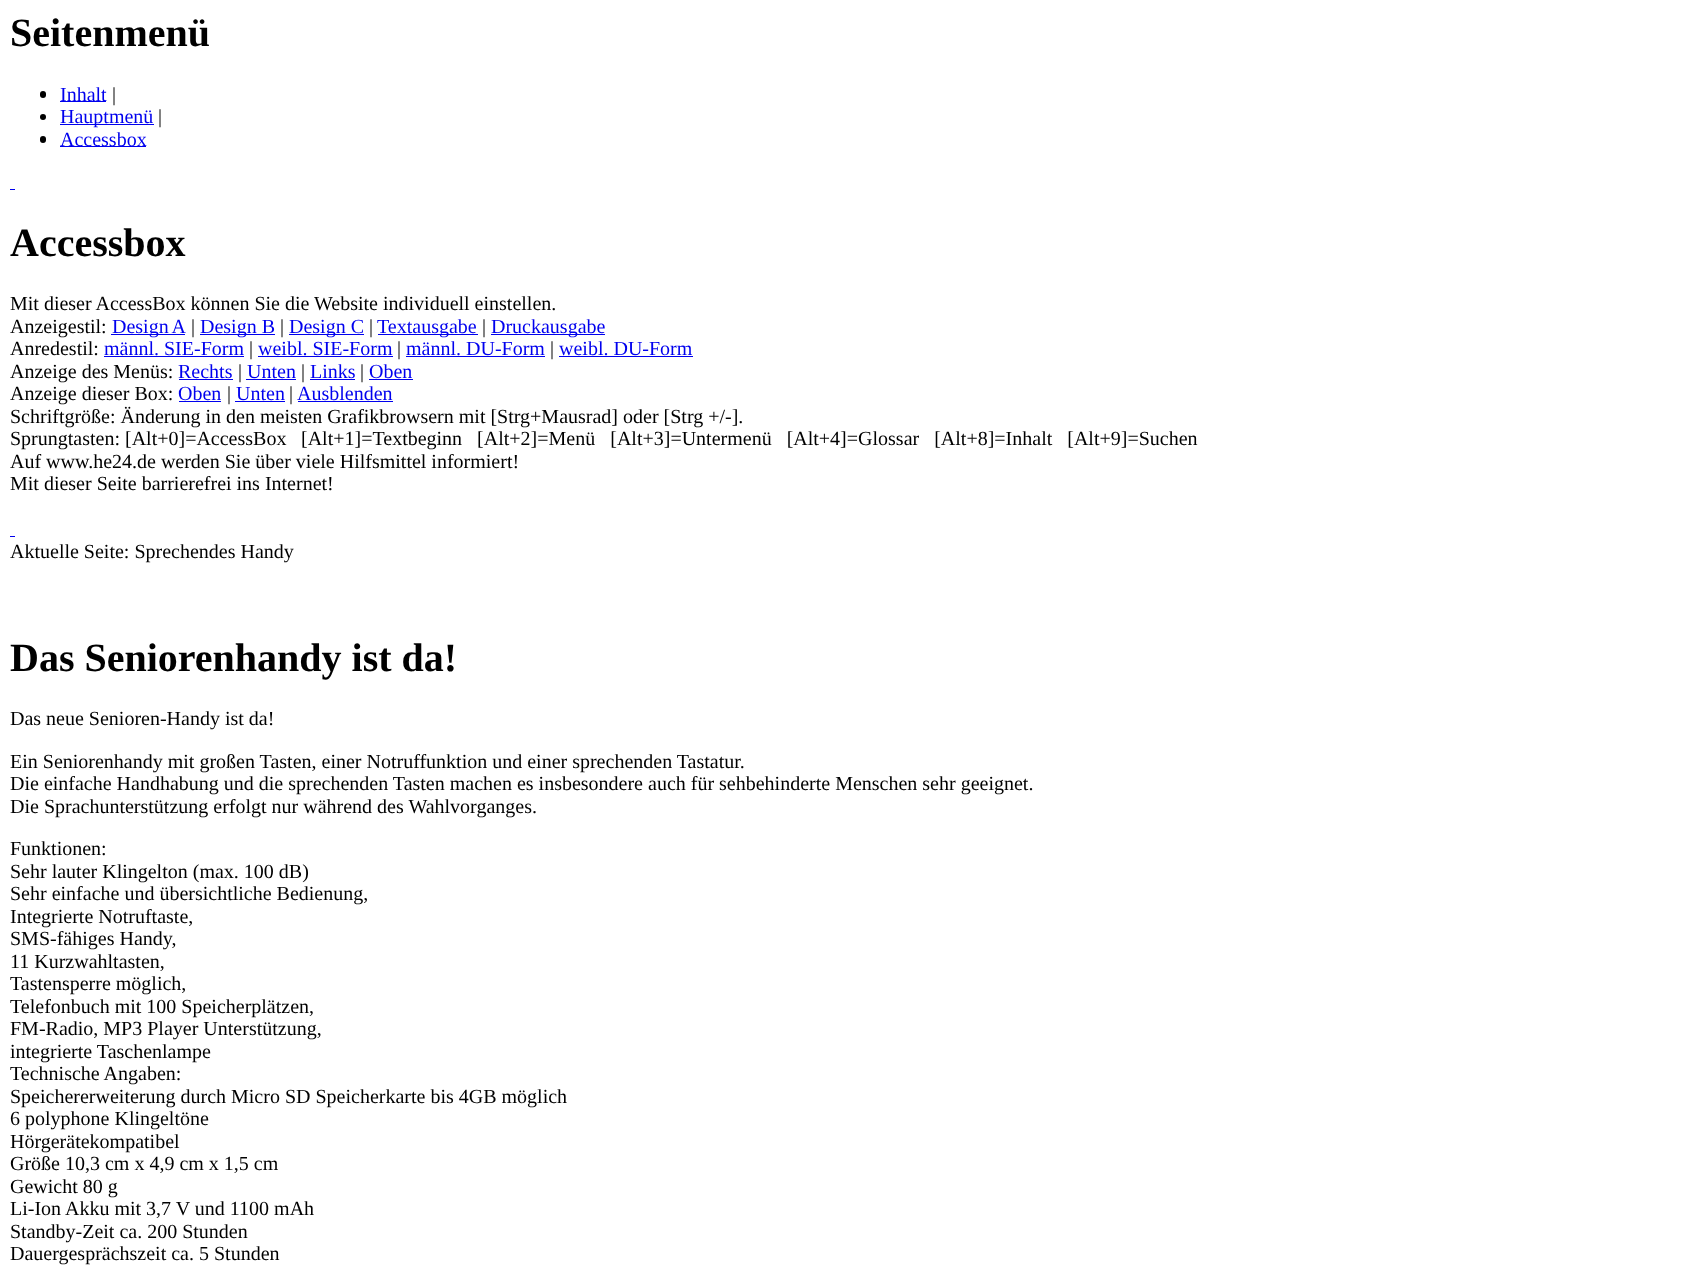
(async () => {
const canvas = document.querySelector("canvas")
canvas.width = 1684
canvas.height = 1269
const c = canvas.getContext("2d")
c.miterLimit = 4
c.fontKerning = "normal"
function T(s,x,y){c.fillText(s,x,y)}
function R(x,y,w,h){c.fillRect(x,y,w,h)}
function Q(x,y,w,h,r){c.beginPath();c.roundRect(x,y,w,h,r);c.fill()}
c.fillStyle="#fff"
R(0,0,1684,1269)
c.font="bold 40px Liberation Serif"
c.fillStyle="#000"
T("Seitenmenü",10,46)
Q(40,91,6,7,3)
c.fillStyle="#00e"
R(60,101,46,1)
c.font="20px Liberation Serif"
T("Inhalt",60,101)
c.fillStyle="#000"
T("|",112,101)
c.beginPath()
c.arc(43,117,3,0,7)
c.fill()
c.fillStyle="#00e"
R(60,124,94,1)
T("Hauptmenü",60,123)
c.fillStyle="#000"
T("|",158,123)
Q(40,136,6,7,3)
c.fillStyle="#00e"
R(60,146,86,1)
T("Accessbox",60,146)
R(10,189,5,1)
c.font="bold 40px Liberation Serif"
c.fillStyle="#000"
T("Accessbox",10,256)
c.font="20px Liberation Serif"
T("Mit dieser AccessBox können Sie die Website individuell einstellen.",10,310)
T("Anzeigestil:",10,333)
c.fillStyle="#00e"
R(111,334,74,1)
c.wordSpacing="-1px"
T("Design A",112,333)
c.wordSpacing="0px"
c.fillStyle="#000"
T("|",191,333)
c.fillStyle="#00e"
R(200,334,75,1)
T("Design B",200,333)
c.fillStyle="#000"
T("|",280,333)
c.fillStyle="#00e"
R(289,334,75,1)
T("Design C",289,333)
c.fillStyle="#000"
T("|",369,333)
c.fillStyle="#00e"
R(378,334,100,1)
T("Textausgabe",377,333)
c.fillStyle="#000"
T("|",482,333)
c.fillStyle="#00e"
R(491,334,114,1)
T("Druckausgabe",491,333)
c.fillStyle="#000"
T("Anredestil:",10,355)
c.fillStyle="#00e"
T("männl. SIE-Form",104,355)
R(104,356,140,1)
c.fillStyle="#000"
T("|",249,355)
c.fillStyle="#00e"
T("weibl. SIE-Form",258,355)
R(258,356,135,1)
c.fillStyle="#000"
T("|",397,355)
c.fillStyle="#00e"
T("männl. DU-Form",406,355)
R(406,356,139,1)
c.fillStyle="#000"
T("|",550,355)
c.fillStyle="#00e"
T("weibl. DU-Form",559,355)
R(559,356,134,1)
c.fillStyle="#000"
T("Anzeige des Menüs:",10,378)
c.fillStyle="#00e"
T("Rechts",178,378)
R(179,379,54,1)
c.fillStyle="#000"
T("|",238,378)
c.fillStyle="#00e"
T("Unten",247,378)
R(246,379,50,1)
c.fillStyle="#000"
T("|",301,378)
c.fillStyle="#00e"
T("Links",310,378)
R(310,379,45,1)
c.fillStyle="#000"
T("|",360,378)
c.fillStyle="#00e"
T("Oben",369,378)
R(369,379,44,1)
c.fillStyle="#000"
T("Anzeige dieser Box:",10,400)
c.fillStyle="#00e"
T("Oben",178,400)
R(179,401,42,1)
c.fillStyle="#000"
T("|",227,400)
c.fillStyle="#00e"
T("Unten",236,400)
R(235,401,50,1)
c.fillStyle="#000"
T("|",289,400)
c.fillStyle="#00e"
T("Ausblenden",297,400)
R(298,401,95,1)
c.fillStyle="#000"
T("Schriftgröße: Änderung in den meisten Grafikbrowsern mit [Strg+Mausrad] oder [Strg +/-].",10,423)
T("Sprungtasten: [Alt+0]=AccessBox",10,445)
T("[Alt+1]=Textbeginn   [Alt+2]=Menü   [Alt+3]=Untermenü   [Alt+4]=Glossar   [Alt+8]=Inhalt   [Alt+9]=Suchen",301,445)
T("Auf www.he24.de werden Sie über viele Hilfsmittel informiert!",10,468)
T("Mit dieser Seite barrierefrei ins Internet!",10,490)
c.fillStyle="#00e"
R(10,536,5,1)
c.fillStyle="#000"
T("Aktuelle Seite: Sprechendes Handy",10,558)
c.font="bold 40px Liberation Serif"
T("Das Seniorenhandy ist da!",10,671)
c.font="20px Liberation Serif"
T("Das neue Senioren-Handy ist da!",10,725)
T("Ein Seniorenhandy mit großen Tasten, einer Notruffunktion und einer sprechenden Tastatur.",10,768)
T("Die einfache Handhabung und die sprechenden Tasten machen es insbesondere auch für sehbehinderte Menschen sehr geeignet.",10,790)
T("Die Sprachunterstützung erfolgt nur während des Wahlvorganges.",10,813)
T("Funktionen:",10,855)
T("Sehr lauter Klingelton (max. 100 dB)",10,878)
T("Sehr einfache und übersichtliche Bedienung,",10,900)
T("Integrierte Notruftaste,",10,923)
T("SMS-fähiges Handy,",10,945)
T("11 Kurzwahltasten,",10,968)
T("Tastensperre möglich,",10,990)
T("Telefonbuch mit 100 Speicherplätzen,",10,1013)
T("FM-Radio, MP3 Player Unterstützung,",10,1035)
T("integrierte Taschenlampe",10,1058)
T("Technische Angaben:",10,1080)
T("Speichererweiterung durch Micro SD Speicherkarte bis 4GB möglich",10,1103)
T("6 polyphone Klingeltöne",10,1125)
T("Hörgerätekompatibel",10,1148)
T("Größe 10,3 cm x 4,9 cm x 1,5 cm",10,1170)
T("Gewicht 80 g",10,1193)
T("Li-Ion Akku mit 3,7 V und 1100 mAh",10,1215)
T("Standby-Zeit ca. 200 Stunden",10,1238)
T("Dauergesprächszeit ca. 5 Stunden",10,1260)
})()
